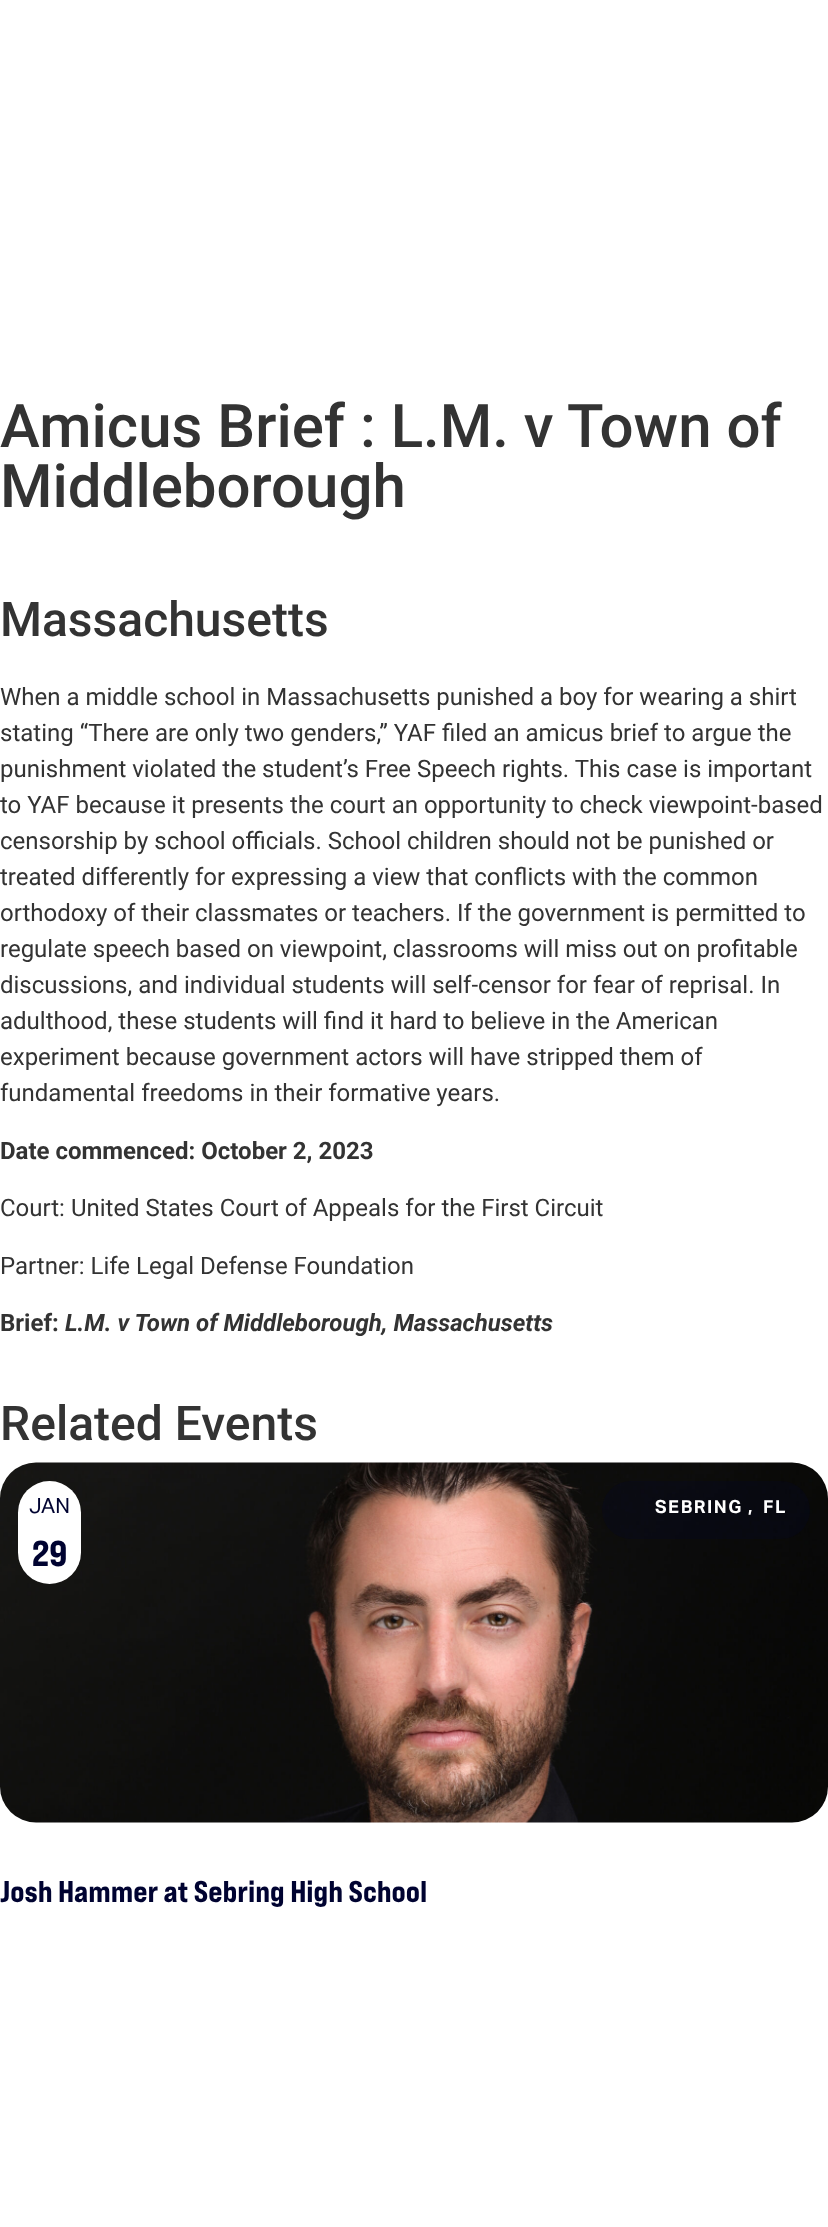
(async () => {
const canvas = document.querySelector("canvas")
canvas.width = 828
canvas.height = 2227
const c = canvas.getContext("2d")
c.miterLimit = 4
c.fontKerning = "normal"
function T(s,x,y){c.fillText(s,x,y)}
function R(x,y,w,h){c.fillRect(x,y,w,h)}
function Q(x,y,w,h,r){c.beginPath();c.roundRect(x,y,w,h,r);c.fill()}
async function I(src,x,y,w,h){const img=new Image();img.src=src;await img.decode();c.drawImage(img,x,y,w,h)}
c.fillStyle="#fff"
R(0,0,828,2227)
c.font="500 60px Roboto"
c.fillStyle="#333"
T("Amicus Brief : L.M. v Town of",0,447)
T("Middleborough",0,507)
c.font="500 48px Roboto"
T("Massachusetts",0,636)
c.font="24px Roboto"
T("When a middle school in Massachusetts punished a boy for wearing a shirt",0,705)
T("stating “There are only two genders,” YAF filed an amicus brief to argue the",0,741)
T("punishment violated the student’s Free Speech rights. This case is important",0,777)
T("to YAF because it presents the court an opportunity to check viewpoint-based",0,813)
T("censorship by school officials. School children should not be punished or",0,849)
T("treated differently for expressing a view that conflicts with the common",0,885)
T("orthodoxy of their classmates or teachers. If the government is permitted to",0,921)
T("regulate speech based on viewpoint, classrooms will miss out on profitable",0,957)
T("discussions, and individual students will self-censor for fear of reprisal. In",0,993)
T("adulthood, these students will find it hard to believe in the American",0,1029)
T("experiment because government actors will have stripped them of",0,1065)
T("fundamental freedoms in their formative years.",0,1101)
c.font="bold 24px Roboto"
T("Date commenced: October 2, 2023",0,1159)
c.font="24px Roboto"
T("Court: United States Court of Appeals for the First Circuit",0,1216)
T("Partner: Life Legal Defense Foundation",0,1274)
c.font="bold 24px Roboto"
T("Brief:",0,1331)
c.font="italic bold 24px Roboto"
T("L.M. v Town of Middleborough, Massachusetts",65,1331)
c.font="500 48px Roboto"
T("Related Events",0,1440)
await I("1.png",0,1462,828,361)
c.fillStyle="#fff"
Q(18,1481,63,103,31.5)
c.font="21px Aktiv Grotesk"
c.fillStyle="#000331"
T("JAN",29,1513)
c.font="800 36px Bebas Neue"
T("29",32,1566)
c.fillStyle="#00033333"
Q(602,1481,208,58,29)
c.letterSpacing="1.5px"
c.font="bold 18px Aktiv Grotesk"
c.fillStyle="#fff"
T("SEBRING",655,1513)
T(",",748,1513)
T("FL",763,1513)
c.letterSpacing="0px"
c.font="800 30px Bebas Neue"
c.fillStyle="#000331"
T("Josh Hammer at Sebring High School",0,1902)
})()
